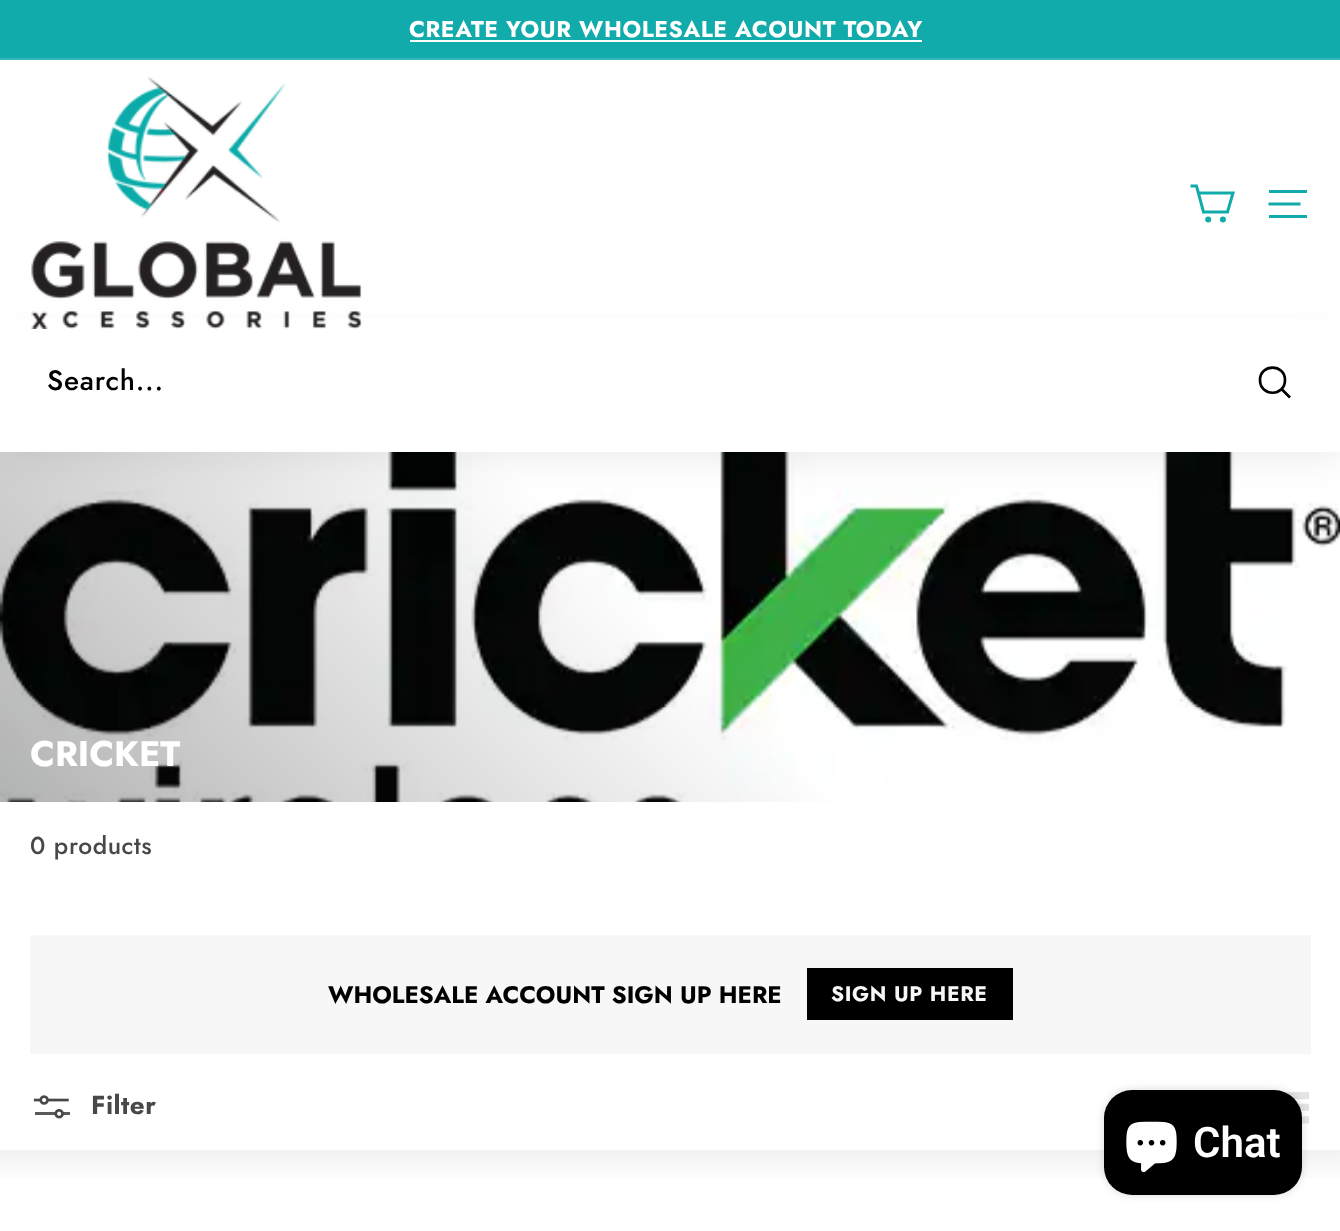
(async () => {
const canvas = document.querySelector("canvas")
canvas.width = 1340
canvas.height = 1231
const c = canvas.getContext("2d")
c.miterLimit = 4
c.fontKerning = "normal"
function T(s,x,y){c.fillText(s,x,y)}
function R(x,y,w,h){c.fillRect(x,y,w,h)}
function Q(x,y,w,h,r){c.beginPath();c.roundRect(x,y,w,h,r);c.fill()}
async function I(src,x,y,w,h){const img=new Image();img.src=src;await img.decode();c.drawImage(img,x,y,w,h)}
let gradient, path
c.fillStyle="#fff"
R(0,0,1340,1231)
c.fillStyle="#f7f7f7"
R(30,935,1281,119)
c.fillStyle="#11abab"
R(0,0,1340,58)
c.letterSpacing="0.6px"
c.font="bold 22.75px Jost"
c.fillStyle="#fff"
T("CREATE YOUR WHOLESALE ACOUNT TODAY",409,37)
R(410,40,512,2)
c.fillStyle="#35b8b8"
R(0,58,1340,2)
await I("2.png",0,452,1340,350)
c.fillStyle="#0000001a"
c.filter="blur(22px)"
c.beginPath()
c.rect(0,347,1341,105)
c.fill()
c.filter="none"
c.fillStyle="#fff"
R(0,319,1340,133)
await I("1.png",31,77,332,252)
path = new Path2D("M1198.5 193h34.5l-5.5 19h-24l-7-26h-6")
c.strokeStyle="#11abab"
c.lineWidth=3
c.stroke(path)
c.beginPath()
c.arc(1208.2,219.4,1.5,0,7)
c.stroke()
c.beginPath()
c.arc(1222.9,219.4,1.5,0,7)
c.stroke()
c.fillStyle="#11abab"
R(1269,190,38,3)
path = new Path2D("M1268.5 204h32")
c.stroke(path)
R(1269,215,38,3)
c.letterSpacing="0.75px"
c.font="500 28px Jost"
c.fillStyle="#000"
T("Search...",47,390)
path = new Path2D("M1285 380c0 17-25 17-25 0c0-16.5 25-16.5 25 0zm5 17.5l-8.5-8.5")
c.strokeStyle="#000"
c.lineWidth=2.7
c.stroke(path)
c.letterSpacing="0px"
c.font="bold 35.5px Jost"
c.fillStyle="#fff"
T("CRICKET",30,766)
c.letterSpacing="0.6px"
c.font="500 24.5px Jost"
c.fillStyle="#484848"
T("0 products",30,854)
c.letterSpacing="0px"
c.font="bold 23.9px Jost"
c.fillStyle="#000"
T("WHOLESALE ACCOUNT SIGN UP HERE",328,1003)
R(807,968,206,52)
c.letterSpacing="0.6px"
c.font="bold 21px Jost"
c.fillStyle="#f7f7f7"
T("SIGN UP HERE",831,1001)
await I("3.png",33,1095,37,24)
c.letterSpacing="0.5px"
c.font="bold 26px Jost"
c.fillStyle="#484848"
T("Filter",91,1114)
await I("4.png",1284,1092,25,32)
gradient = c.createLinearGradient(670,1150,670,1185)
gradient.addColorStop(0,"#f2f2f2")
gradient.addColorStop(1,"#fff")
c.fillStyle = gradient
R(0,1150,1340,28)
c.fillStyle="#00000026"
c.filter="blur(4.5px)"
c.beginPath()
c.roundRect(1104,1090,198,105,28)
c.fill()
c.filter="none"
c.fillStyle="#000"
Q(1104,1090,198,105,28)
await I("5.png",1126,1121,51,52)
c.letterSpacing="0px"
c.font="600 42px Roboto"
c.fillStyle="#fff"
T("Chat",1193,1157)
})()
